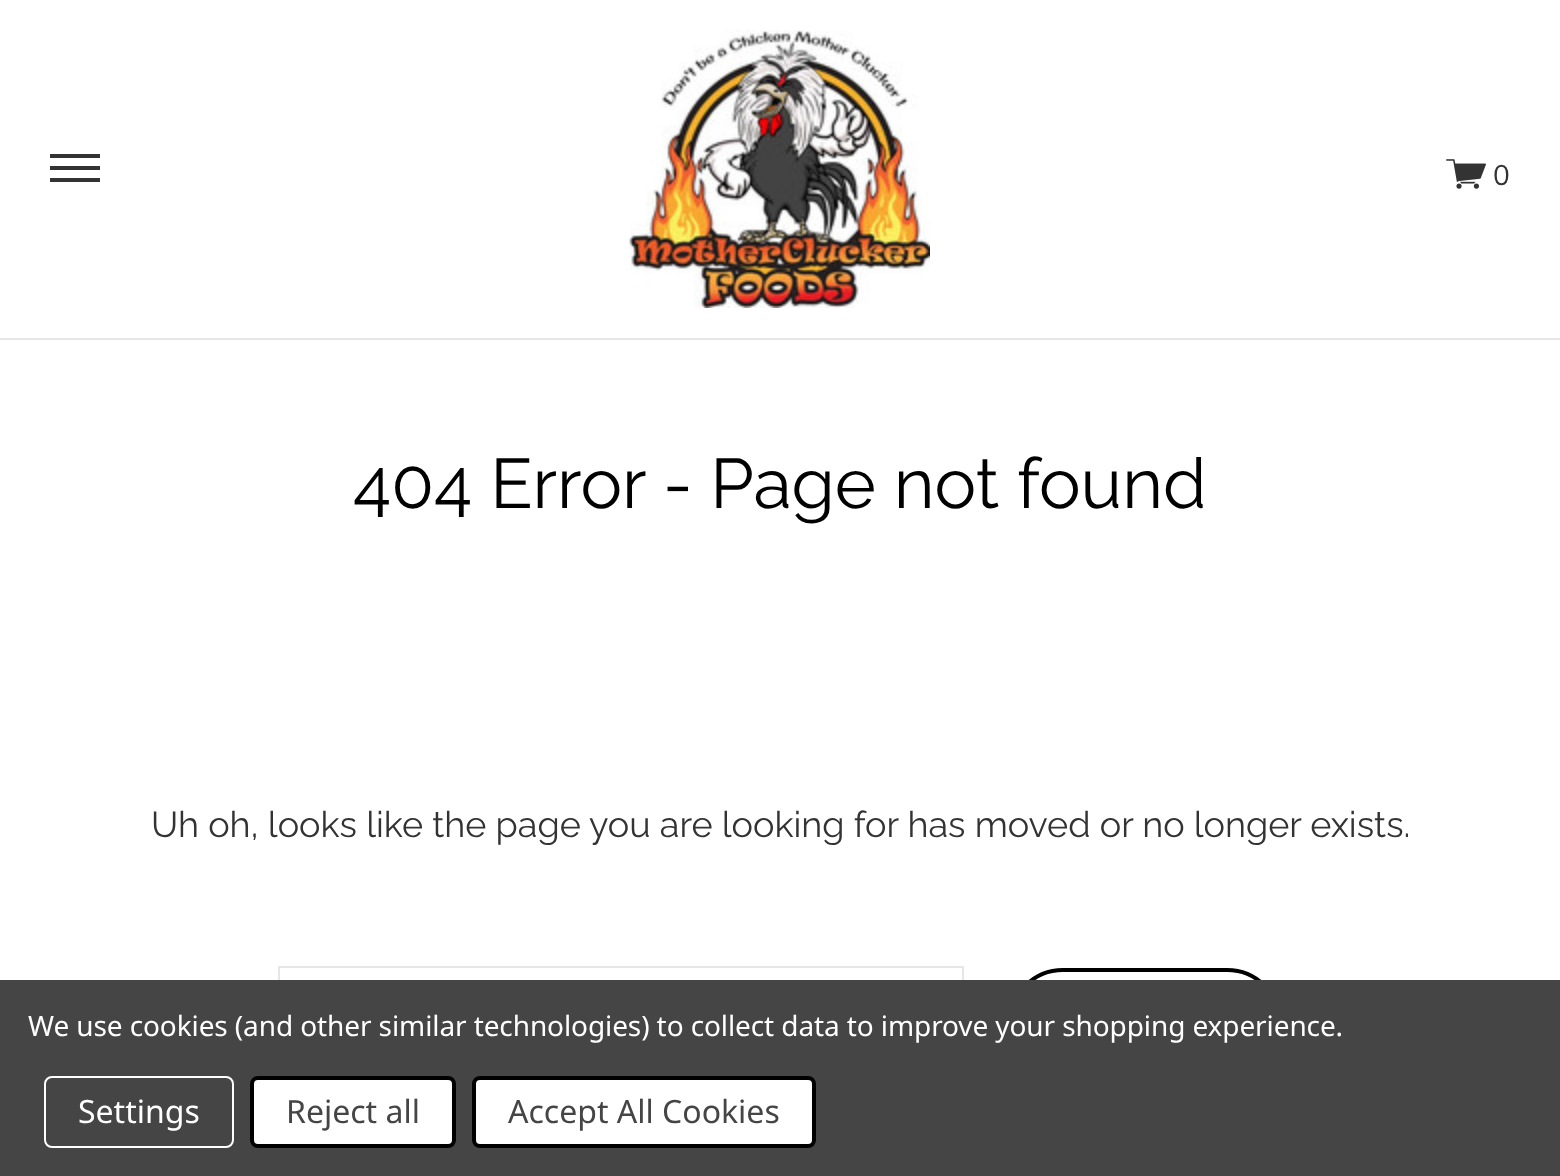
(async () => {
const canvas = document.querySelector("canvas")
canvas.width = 1560
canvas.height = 1176
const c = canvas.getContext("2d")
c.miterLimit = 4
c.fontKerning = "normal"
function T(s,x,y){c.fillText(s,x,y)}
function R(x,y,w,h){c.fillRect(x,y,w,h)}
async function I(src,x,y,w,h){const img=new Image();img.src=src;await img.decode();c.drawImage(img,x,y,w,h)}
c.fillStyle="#fff"
R(0,0,1560,1176)
c.fillStyle="#e6e6e6"
R(0,338,1560,2)
c.fillStyle="#333"
R(50,166,50,4)
R(50,154,50,4)
R(50,178,50,4)
await I("1.png",629,30,301,278)
await I("2.png",1446,159,40,30)
c.font="28px Muli"
T("0",1493,185)
c.font="70px Raleway"
c.fillStyle="#000"
T("404 Error - Page not found",353,508)
c.font="36px Raleway"
c.fillStyle="#333"
T("Uh oh, looks like the page you are looking for has moved or no longer exists.",151,837)
c.strokeStyle="#e6e6e6"
c.lineWidth=2
c.strokeRect(279,967,684,112)
c.beginPath()
c.roundRect(1010,970,270,106,53)
c.strokeStyle="#000"
c.lineWidth=4
c.stroke()
c.fillStyle="#454545"
R(0,980,1560,196)
c.letterSpacing="-0.1px"
c.font="28px Noto Sans"
c.fillStyle="#fff"
T("We use cookies (and other similar technologies) to collect data to improve your shopping experience.",28,1036)
c.beginPath()
c.roundRect(45,1077,188,70,7)
c.strokeStyle="#fff"
c.lineWidth=2
c.stroke()
c.letterSpacing="0px"
c.font="32px Noto Sans"
T("Settings",78,1123)
c.beginPath()
c.roundRect(252,1078,202,68,6)
c.fill()
c.strokeStyle="#000"
c.lineWidth=4
c.stroke()
c.fillStyle="#454545"
T("Reject all",286,1123)
c.fillStyle="#fff"
c.beginPath()
c.roundRect(474,1078,340,68,6)
c.fill()
c.stroke()
c.fillStyle="#454545"
T("Accept All Cookies",508,1123)
})()
